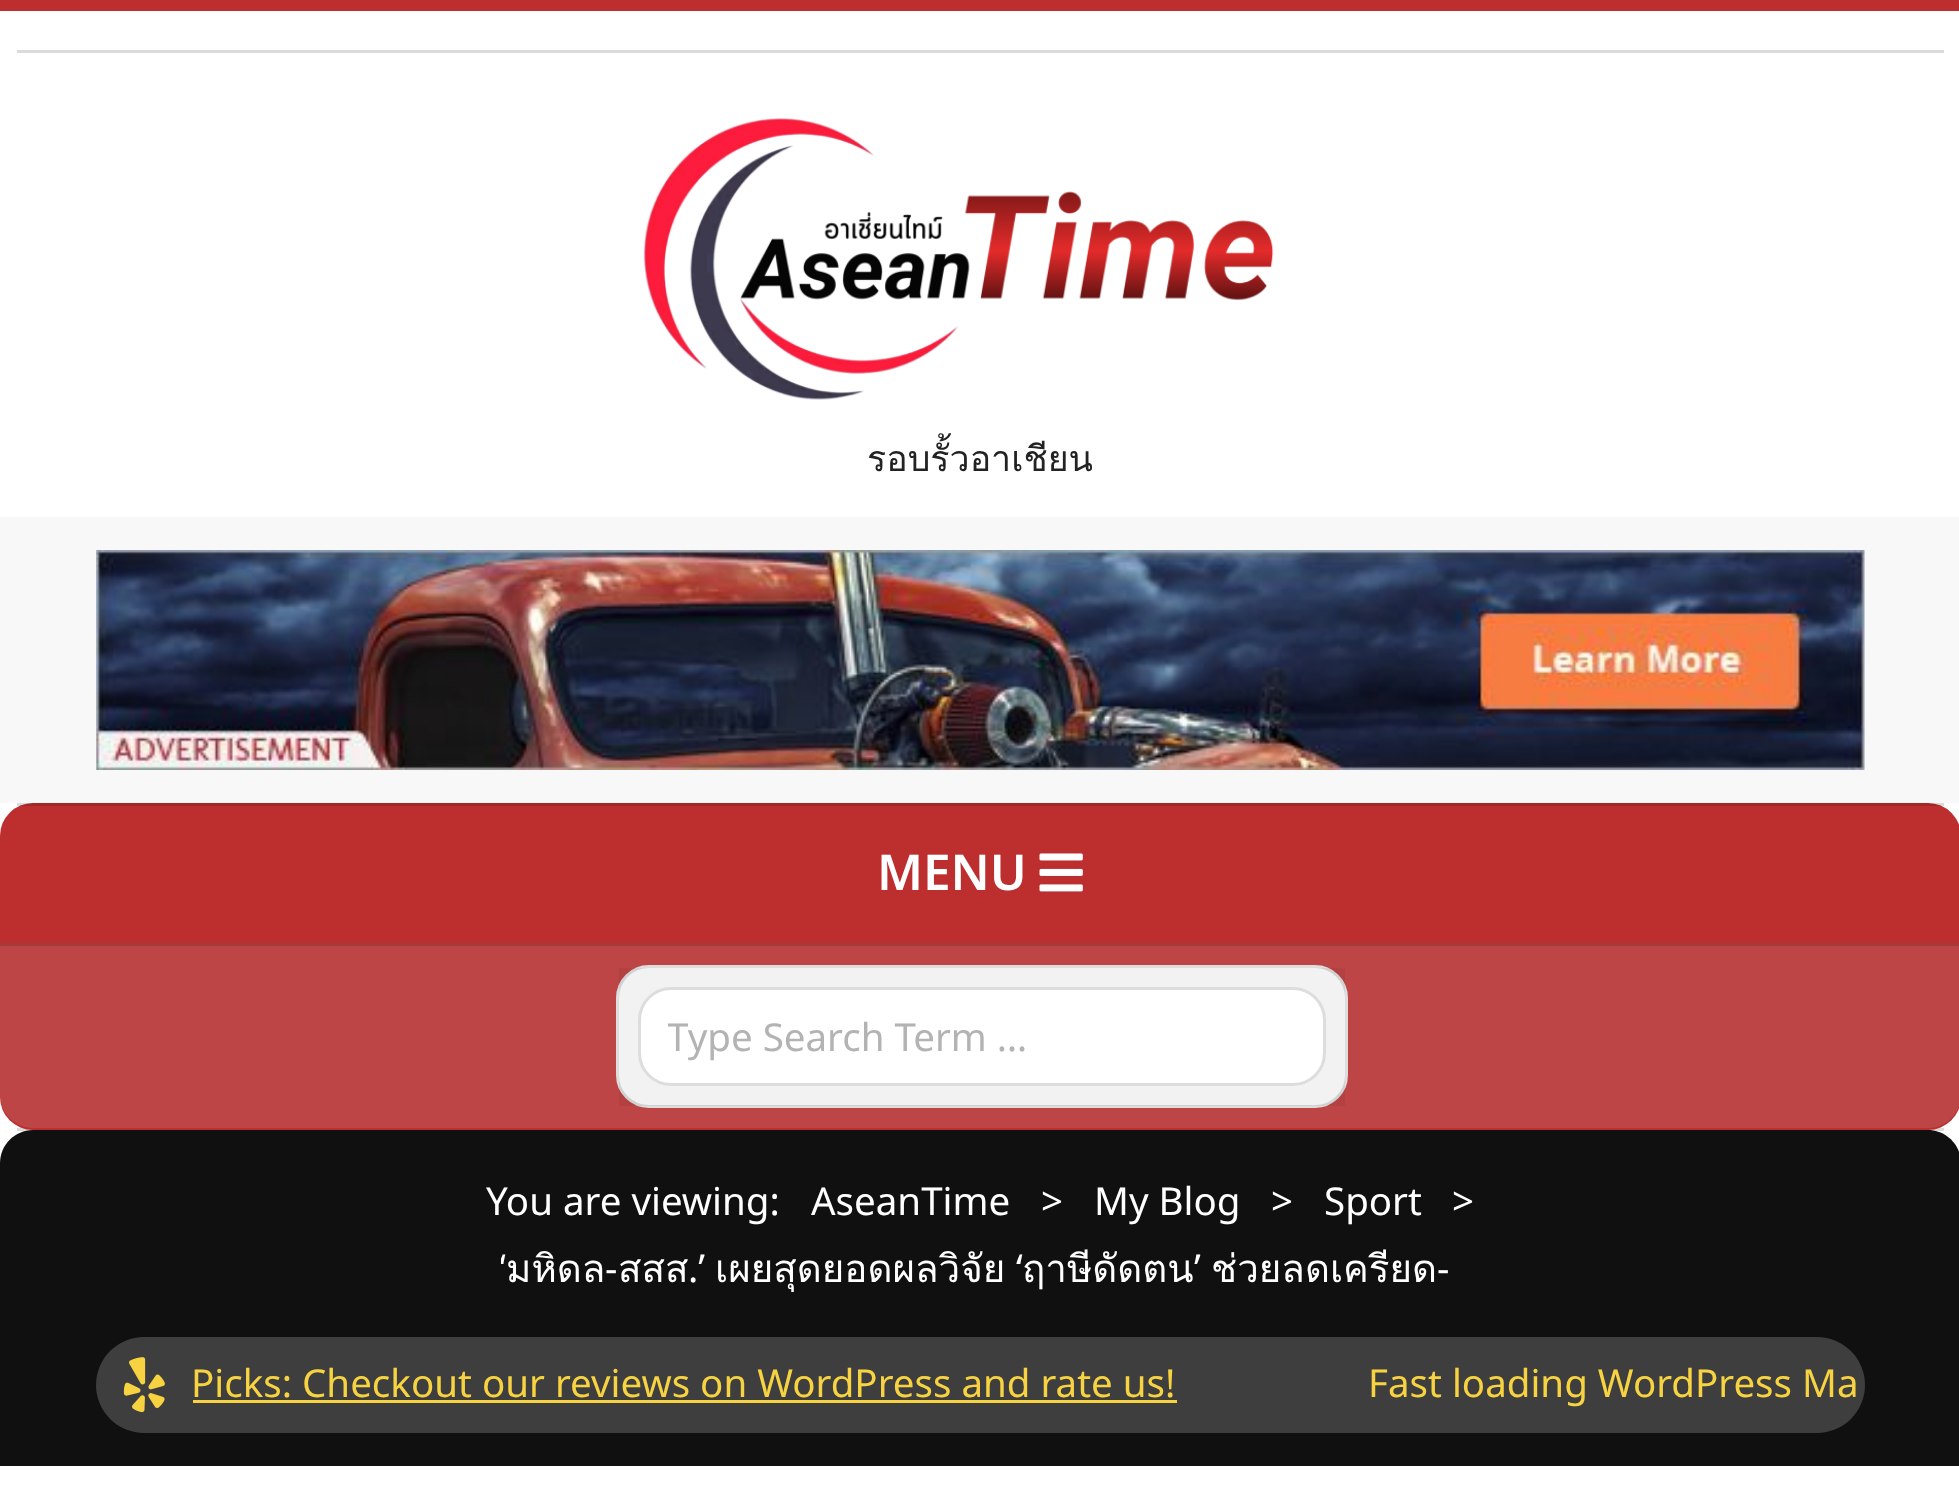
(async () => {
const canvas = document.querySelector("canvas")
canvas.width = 1959
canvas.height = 1504
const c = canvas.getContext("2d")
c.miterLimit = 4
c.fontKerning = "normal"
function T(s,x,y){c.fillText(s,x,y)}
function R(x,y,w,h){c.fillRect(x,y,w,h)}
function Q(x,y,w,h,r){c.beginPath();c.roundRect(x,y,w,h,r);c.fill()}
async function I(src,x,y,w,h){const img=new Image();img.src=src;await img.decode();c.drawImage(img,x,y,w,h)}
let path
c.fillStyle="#fff"
R(0,0,1959,1504)
c.fillStyle="#bd2e2e"
R(0,0,1959,11)
c.fillStyle="#dbdbdb"
R(17,50,1927,3)
R(17,1128,1927,3)
await I("1.png",643,118,631,282)
c.font="35.75px Loma"
c.fillStyle="#222"
T("รอบรั้วอาเชียน",867,471)
c.fillStyle="#f8f8f8"
R(0,517,1959,286)
await I("2.png",96,550,1769,220)
c.fillStyle="#bd2e2e"
Q(0,803,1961,327,33)
c.fillStyle="#00000024"
R(17,803,1927,3)
c.font="600 49.5px Noto Sans"
c.fillStyle="#fff"
T("MENU",877,890)
await I("3.png",1039,853,44,39)
c.fillStyle="#c8c8c826"
path = new Path2D("M0 943h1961v152c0 18-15 33-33 33h-1895c-18 0-33-15-33-33z")
c.fill(path)
c.fillStyle="#a43b3b"
R(0,943,1959,3)
c.fillStyle="#fff"
c.beginPath()
c.roundRect(617.5,966.5,729,140,31.5)
c.fill()
c.strokeStyle="#ddd"
c.lineWidth=3
c.stroke()
c.fillStyle="#0000000d"
R(619,968,726,138)
c.fillStyle="#fff"
c.beginPath()
c.roundRect(639.5,988.5,685,96,31.5)
c.fill()
c.stroke()
c.save()
c.beginPath()
c.rect(668,1009,570,53)
c.clip()
c.font="38.5px Noto Sans"
c.fillStyle="#b3b3b3"
T("Type Search Term …",667,1051)
c.restore()
c.fillStyle="#101010"
path = new Path2D("M33 1130h1895c18 0 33 15 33 33v303h-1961v-303c0-18 15-33 33-33z")
c.fill(path)
c.font="38.5px Noto Sans"
c.fillStyle="#fff"
T("You are viewing:",486,1215)
T("AseanTime",811,1215)
T(">",1041,1215)
T("My Blog",1094,1215)
T(">",1271,1215)
T("Sport",1324,1215)
T(">",1452,1215)
c.save()
c.beginPath()
c.rect(501,1235,962,63)
c.clip()
T("‘",499,1282)
c.restore()
c.font="38.5px Loma"
T("มหิดล",506,1282)
c.font="38.5px Noto Sans"
T("-",605,1282)
c.font="38.5px Loma"
T("สสส",618,1282)
c.font="38.5px Noto Sans"
T(".’",688,1282)
c.font="38.5px Loma"
T("เผยสุดยอดผลวิจัย",715,1282)
c.font="38.5px Noto Sans"
T("‘",1016,1282)
c.font="38.5px Loma"
T("ฤาษีดัดตน",1022,1282)
c.font="38.5px Noto Sans"
T("’",1194,1282)
c.font="38.5px Loma"
T("ช่วยลดเครียด",1211,1282)
c.font="38.5px Noto Sans"
T("-",1437,1282)
c.fillStyle="#3e3e3e"
Q(96,1337,1769,96,48)
await I("4.png",123,1357,42,56)
c.fillStyle="#f7d341"
T("Picks: Checkout our reviews on WordPress and rate us!",191,1397)
R(193,1400,984,3)
T("Fast loading WordPress Ma",1368,1397)
})()
